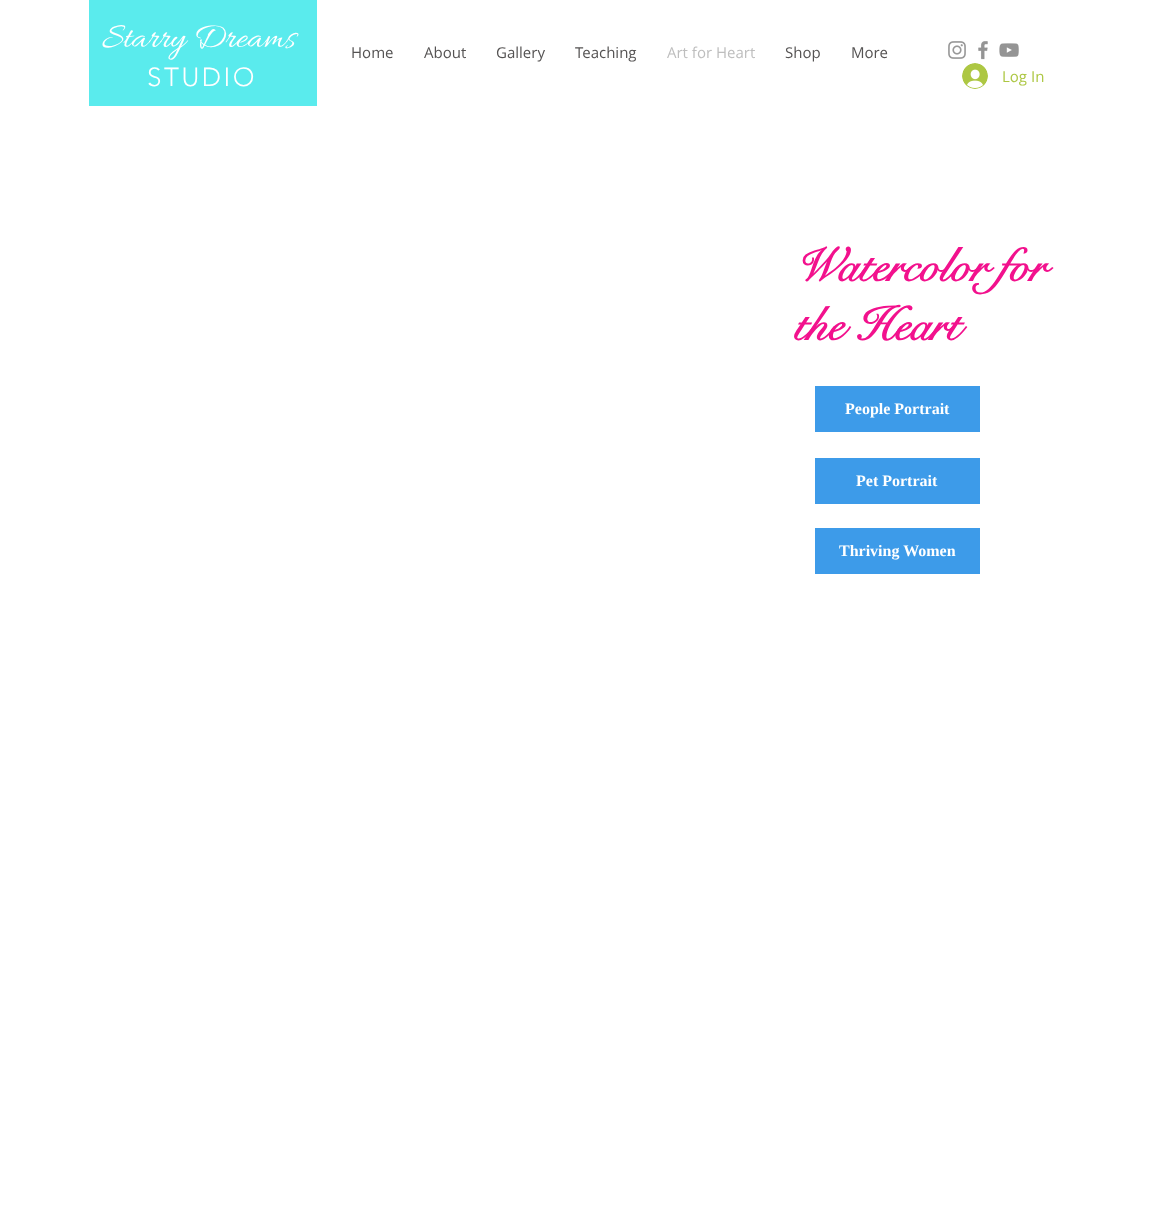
(async () => {
const canvas = document.querySelector("canvas")
canvas.width = 1157
canvas.height = 1221
const c = canvas.getContext("2d")
c.miterLimit = 4
c.fontKerning = "normal"
function T(s,x,y){c.fillText(s,x,y)}
function R(x,y,w,h){c.fillRect(x,y,w,h)}
async function I(src,x,y,w,h){const img=new Image();img.src=src;await img.decode();c.drawImage(img,x,y,w,h)}
c.fillStyle="#fff"
R(0,0,1157,1221)
c.fillStyle="#5aebed"
R(89,0,228,106)
c.font="36px Allura"
c.fillStyle="#fff"
T("Starry Dreams",102,46)
c.letterSpacing="2.5px"
c.font="300 26px 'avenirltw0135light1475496'"
T("STUDIO",147,86)
c.letterSpacing="0px"
c.font="15px Open Sans"
c.fillStyle="#555353"
T("Home",351,58)
T("About",424,58)
T("Gallery",496,58)
T("Teaching",575,58)
c.fillStyle="#bebebe"
T("Art for Heart",667,58)
c.fillStyle="#555353"
T("Shop",785,58)
T("More",851,58)
await I("1.png",948,41,18,18)
await I("2.png",978,41,10,19)
await I("3.png",999,43,20,14)
await I("4.png",962,63,26,26)
c.fillStyle="#adc743"
T("Log In",1002,82)
c.font="bold 47px 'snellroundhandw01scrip'"
c.fillStyle="#f2118d"
T("Watercolor for",794,281)
T("the Heart",794,340)
c.fillStyle="#3d9be9"
R(815,386,165,46)
c.font="bold 16px Liberation Serif"
c.fillStyle="#fff"
T("People Portrait",845,414)
c.fillStyle="#3d9be9"
R(815,458,165,46)
c.fillStyle="#fff"
T("Pet Portrait",856,486)
c.fillStyle="#3d9be9"
R(815,528,165,46)
c.fillStyle="#fff"
T("Thriving Women",839,556)
})()
